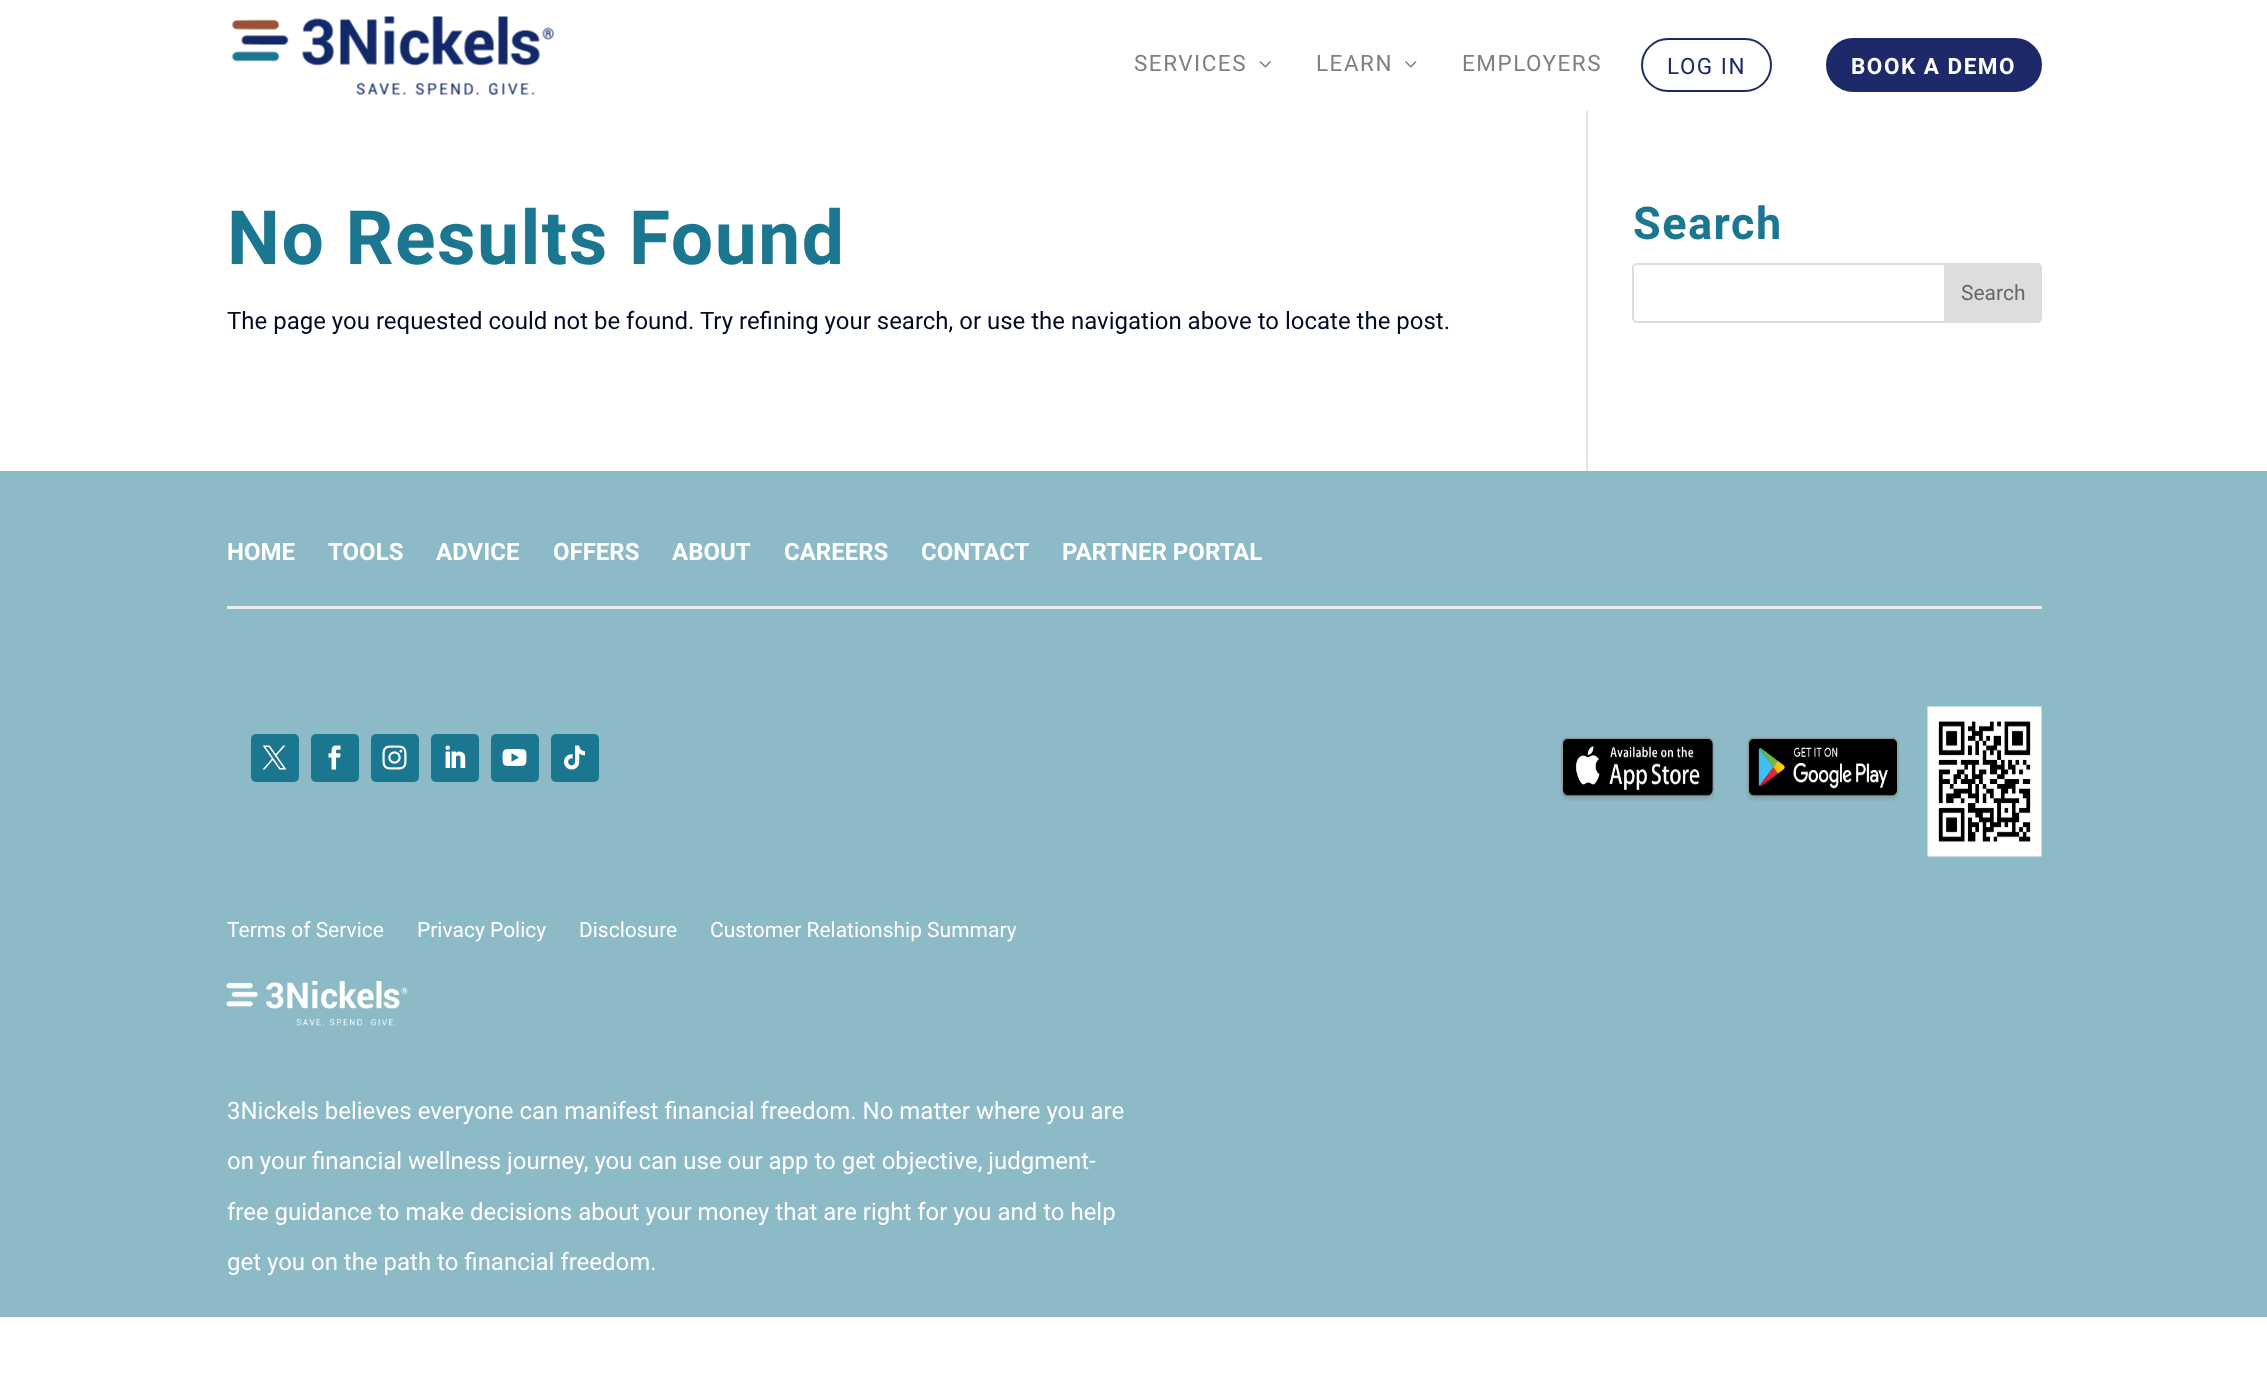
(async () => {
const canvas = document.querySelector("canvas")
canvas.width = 2267
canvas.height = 1376
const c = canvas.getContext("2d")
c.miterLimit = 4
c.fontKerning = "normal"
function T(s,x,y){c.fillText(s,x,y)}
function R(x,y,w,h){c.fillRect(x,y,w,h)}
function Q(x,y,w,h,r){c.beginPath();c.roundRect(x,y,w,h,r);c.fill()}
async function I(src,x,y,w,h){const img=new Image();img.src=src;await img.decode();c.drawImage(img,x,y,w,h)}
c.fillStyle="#fff"
R(0,0,2267,1376)
await I("1.png",232,16,322,79)
c.letterSpacing="1.5px"
c.font="22.5px Roboto"
c.fillStyle="#808080"
T("SERVICES",1134,71)
await I("2.png",1259,61,12,7)
T("LEARN",1316,71)
await I("3.png",1405,61,12,7)
T("EMPLOYERS",1462,71)
c.beginPath()
c.roundRect(1642,39,129,52,26)
c.strokeStyle="#1e2969"
c.lineWidth=2
c.stroke()
c.fillStyle="#1e2969"
T("LOG IN",1667,74)
c.beginPath()
c.roundRect(1827,39,214,52,26)
c.fill()
c.stroke()
c.font="bold 22.5px Roboto"
c.fillStyle="#fff"
T("BOOK A DEMO",1851,74)
c.fillStyle="#e2e2e2"
R(1586,111,2,360)
c.font="bold 75px Roboto"
c.fillStyle="#1b7690"
T("No Results Found",227,264)
c.letterSpacing="0px"
c.font="24px Roboto"
c.fillStyle="#020a24"
T("The page you requested could not be found. Try refining your search, or use the navigation above to locate the post.",227,329)
c.letterSpacing="1.5px"
c.font="bold 45px Roboto"
c.fillStyle="#1b7690"
T("Search",1633,239)
c.beginPath()
c.roundRect(1633,264,408,58,4)
c.strokeStyle="#ddd"
c.stroke()
c.fillStyle="#ddd"
c.beginPath()
c.roundRect(1945,264,96,58,[0,4,4,0])
c.fill()
c.stroke()
c.letterSpacing="0px"
c.font="21px Roboto"
c.fillStyle="#666"
T("Search",1961,300)
c.fillStyle="#8cbac7"
R(0,471,2267,846)
c.font="bold 24px Roboto"
c.fillStyle="#fff"
T("HOME",227,560)
T("TOOLS",328,560)
T("ADVICE",436,560)
T("OFFERS",553,560)
T("ABOUT",672,560)
T("CAREERS",784,560)
T("CONTACT",921,560)
T("PARTNER PORTAL",1062,560)
c.fillStyle="#ededed"
R(227,606,1815,3)
c.fillStyle="#1b7690"
Q(251,734,48,48,5)
await I("4.png",262,745,25,25)
Q(311,734,48,48,5)
await I("5.png",328,745,13,25)
Q(371,734,48,48,5)
await I("6.png",382,745,25,25)
Q(431,734,48,48,5)
await I("7.png",445,745,21,23)
Q(491,734,48,48,5)
await I("8.png",502,749,25,17)
Q(551,734,48,48,5)
await I("9.png",564,745,21,25)
await I("10.png",1560,737,155,64)
await I("11.png",1746,737,154,64)
await I("12.png",1927,706,115,151)
c.font="21px Roboto"
c.fillStyle="#fff"
T("Terms of Service",227,937)
T("Privacy Policy",417,937)
T("Disclosure",579,937)
T("Customer Relationship Summary",710,937)
await I("13.png",226,981,182,45)
c.font="24px Roboto"
T("3Nickels believes everyone can manifest financial freedom. No matter where you are",227,1119)
T("on your financial wellness journey, you can use our app to get objective, judgment-",227,1169)
T("free guidance to make decisions about your money that are right for you and to help",227,1220)
T("get you on the path to financial freedom.",227,1270)
})()
